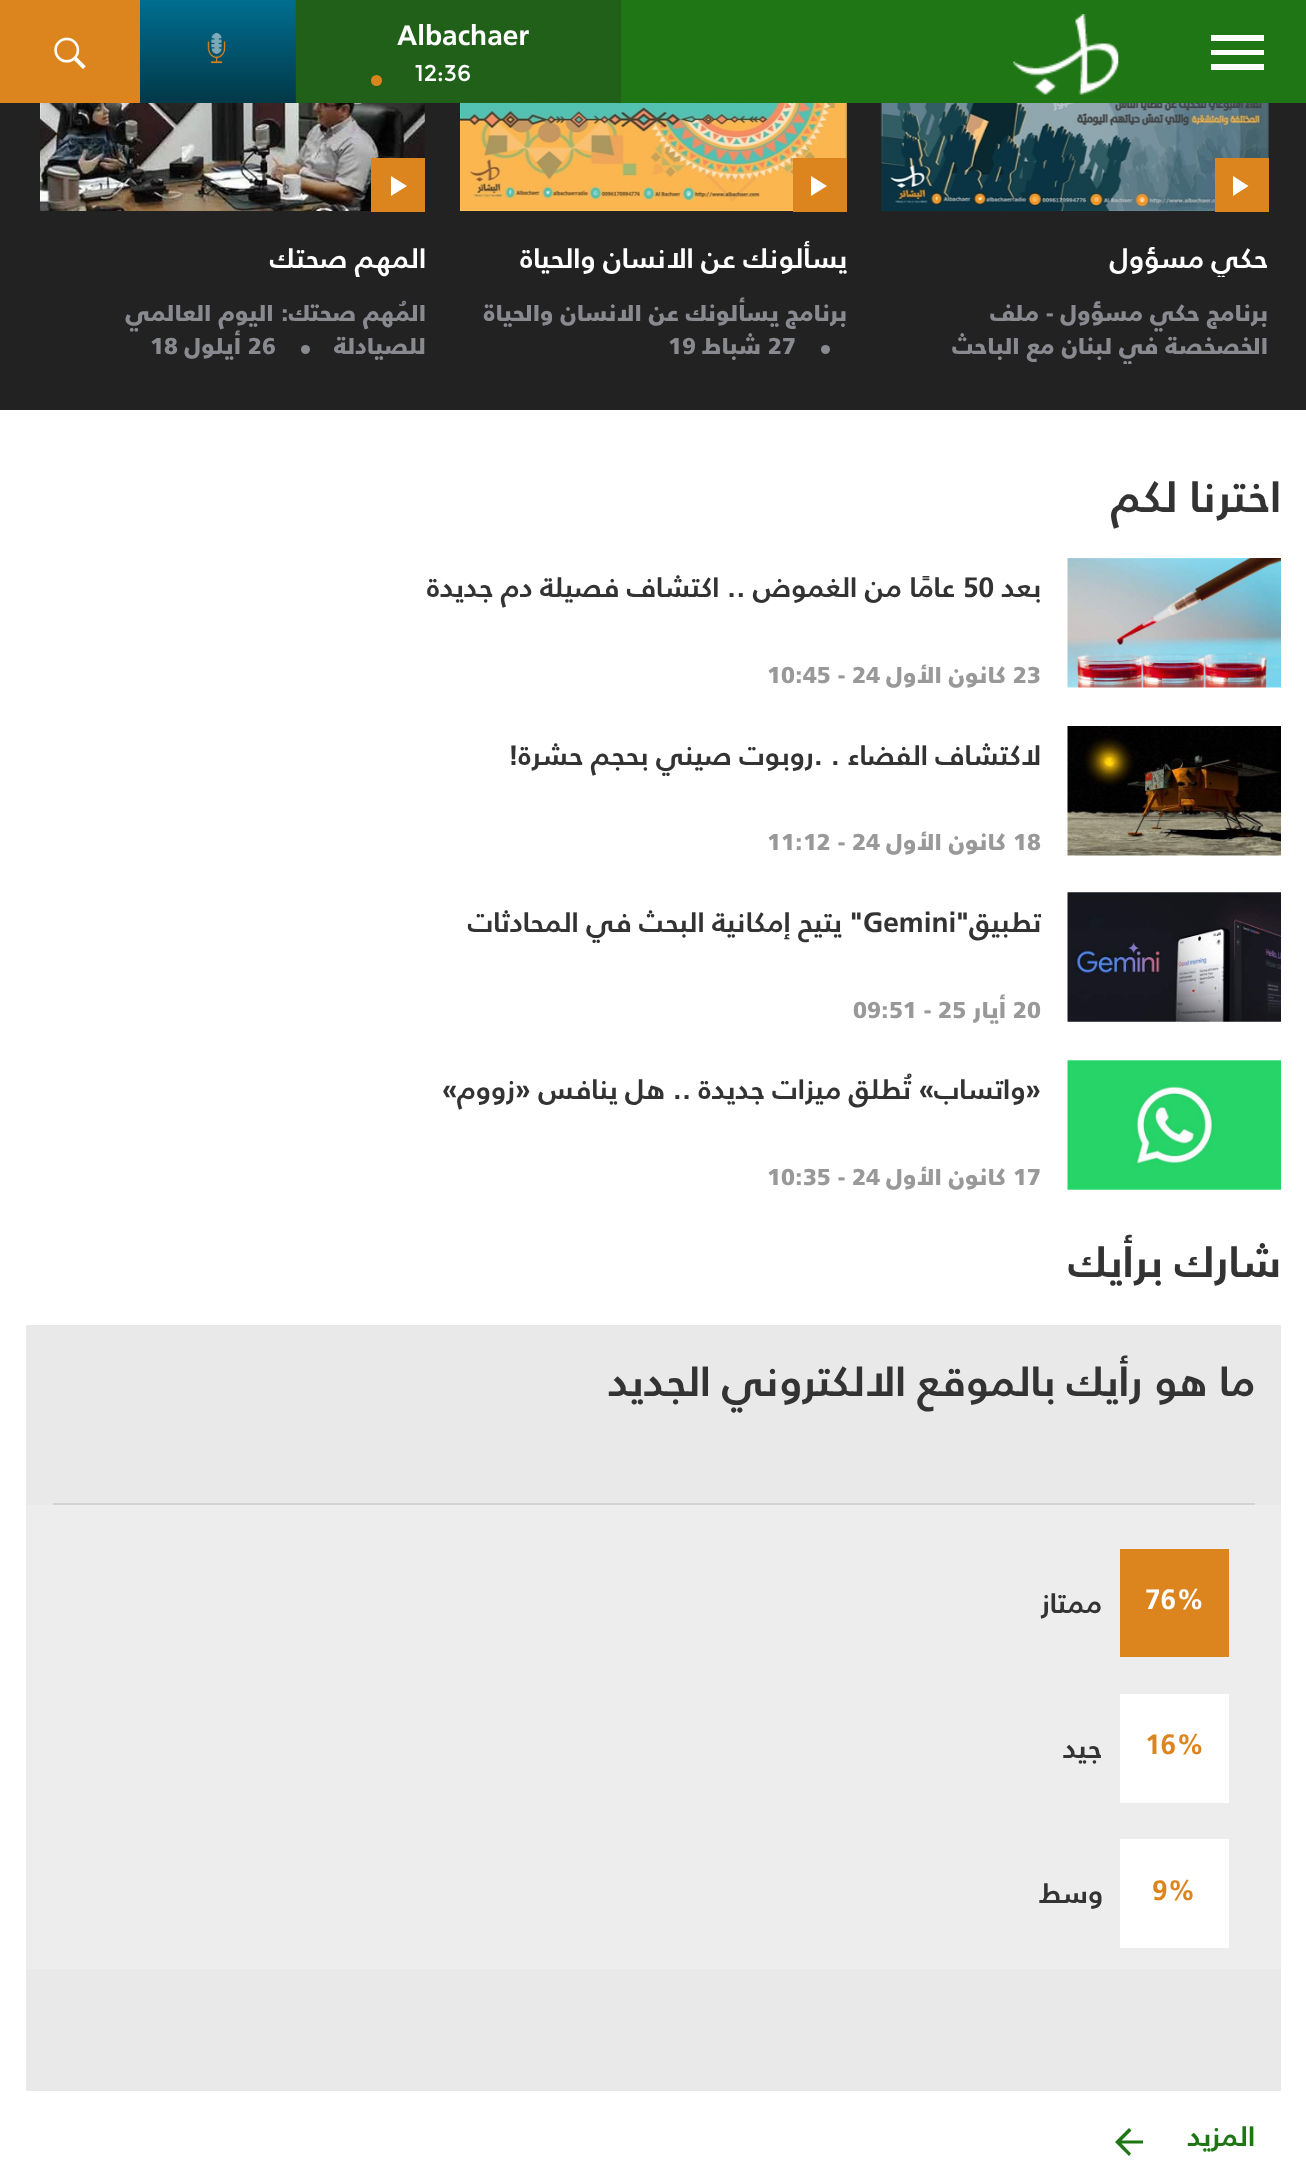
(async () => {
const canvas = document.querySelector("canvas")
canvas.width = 1306
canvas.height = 2184
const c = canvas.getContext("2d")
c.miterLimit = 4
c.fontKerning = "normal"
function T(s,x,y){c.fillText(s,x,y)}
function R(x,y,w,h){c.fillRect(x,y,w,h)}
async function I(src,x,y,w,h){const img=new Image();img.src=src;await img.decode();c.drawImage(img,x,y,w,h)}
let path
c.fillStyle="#fff"
R(0,0,1306,2184)
c.fillStyle="#1f7615"
R(621,0,685,103)
c.fillStyle="#fff"
path = new Path2D("M1211 70v-6h53v6zm0-15v-5h53v5zm0-20h53v6h-53z")
c.fill(path)
await I("1.png",1013,14,106,81)
c.fillStyle="#206018"
R(140,0,481,103)
c.font="bold 28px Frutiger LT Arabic"
c.fillStyle="#fff"
T("Albachaer",397,45)
c.font="22.75px Montserrat"
T("12:36",415,81)
c.fillStyle="#d9841f"
c.beginPath()
c.arc(376.5,80.5,5.5,0,7)
c.fill()
await I("2.png",140,0,156,103)
c.fillStyle="#dc851f"
R(0,0,140,103)
await I("3.png",54,37,32,32)
c.fillStyle="#222"
R(0,103,1306,307)
await I("4.png",880,103,389,108)
c.fillStyle="#dc851f"
R(1215,158,54,54)
c.fillStyle="#fff"
path = new Path2D("M1233 176l15.5 10l-15.5 10z")
c.fill(path)
c.save()
c.beginPath()
c.rect(882,238,387,39)
c.clip()
c.direction="rtl"
c.font="bold 28px Frutiger LT Arabic"
T("حكي مسؤول",1268,268)
c.restore()
c.direction="rtl"
c.font="900 22.75px Frutiger LT Arabic"
c.fillStyle="#898990"
T("برنامج حكي مسؤول - ملف",1268,321)
c.save()
c.beginPath()
c.rect(882,294,387,70)
c.clip()
T("الخصخصة في لبنان مع الباحث",1268,354)
c.restore()
await I("5.png",460,103,387,108)
c.fillStyle="#dc851f"
R(793,158,54,54)
c.fillStyle="#fff"
path = new Path2D("M811 176l16 10l-16 10z")
c.fill(path)
c.font="bold 28px Frutiger LT Arabic"
T("يسألونك عن الانسان والحياة",847,268)
c.font="900 22.75px Frutiger LT Arabic"
c.fillStyle="#898990"
T("برنامج يسألونك عن الانسان والحياة",847,321)
c.beginPath()
c.arc(825.5,349.5,4.5,0,7)
c.fill()
c.direction="ltr"
T("27",768,354)
c.direction="rtl"
T("شباط",761,354)
c.direction="ltr"
T("19",668,354)
await I("6.png",40,103,385,108)
c.fillStyle="#dc851f"
R(371,158,54,54)
c.fillStyle="#fff"
path = new Path2D("M391 176l16 10l-16 10z")
c.fill(path)
c.save()
c.beginPath()
c.rect(40,238,385,39)
c.clip()
c.direction="rtl"
c.font="bold 28px Frutiger LT Arabic"
T("المهم صحتك",426,268)
c.restore()
c.direction="rtl"
c.fillStyle="#898990"
T("المُهم صحتك: اليوم العالمي",426,321)
T("للصيادلة",426,354)
c.beginPath()
c.arc(305.5,349.5,4.5,0,7)
c.fill()
c.direction="ltr"
T("26",248,354)
c.direction="rtl"
T("أيلول",241,354)
c.direction="ltr"
T("18",150,354)
c.direction="rtl"
c.font="bold 43.75px Frutiger LT Arabic"
c.fillStyle="#333"
T("اخترنا لكم",1281,512)
await I("7.png",1067,558,214,130)
c.font="bold 28px Frutiger LT Arabic"
T("بعد",1041,597)
c.direction="ltr"
T("50",963,597)
c.direction="rtl"
T("عامًا من الغموض .. اكتشاف فصيلة دم جديدة",955,597)
c.direction="ltr"
c.font="900 22.75px Frutiger LT Arabic"
c.fillStyle="#999"
T("23",1013,683)
c.direction="rtl"
T("كانون الأول",1006,683)
c.direction="ltr"
T("10:45 - 24",767,683)
await I("8.png",1067,726,214,130)
c.direction="rtl"
c.font="bold 28px Frutiger LT Arabic"
c.fillStyle="#333"
T("لاكتشاف الفضاء . .روبوت صيني بحجم حشرة!",1041,765)
c.direction="ltr"
c.font="900 22.75px Frutiger LT Arabic"
c.fillStyle="#999"
T("18",1013,850)
c.direction="rtl"
T("كانون الأول",1006,850)
c.direction="ltr"
T("11:12 - 24",767,850)
await I("9.png",1067,892,214,130)
c.save()
c.beginPath()
c.rect(53,901,988,74)
c.clip()
c.direction="rtl"
c.font="bold 28px Frutiger LT Arabic"
c.fillStyle="#333"
T("تطبيق\"",1041,932)
c.restore()
c.font="bold 28px Frutiger LT Arabic"
c.fillStyle="#333"
T("Gemini",863,932)
c.direction="rtl"
T("\" يتيح إمكانية البحث في المحادثات",863,932)
c.direction="ltr"
c.font="900 22.75px Frutiger LT Arabic"
c.fillStyle="#999"
T("20",1013,1018)
c.direction="rtl"
T("أيار",1006,1018)
c.direction="ltr"
T("09:51 - 25",853,1018)
await I("10.png",1067,1060,214,130)
c.direction="rtl"
c.font="bold 28px Frutiger LT Arabic"
c.fillStyle="#333"
T("«واتساب» تُطلق ميزات جديدة .. هل ينافس «زووم»",1041,1099)
c.direction="ltr"
c.font="900 22.75px Frutiger LT Arabic"
c.fillStyle="#999"
T("17",1013,1185)
c.direction="rtl"
T("كانون الأول",1006,1185)
c.direction="ltr"
T("10:35 - 24",767,1185)
c.direction="rtl"
c.font="bold 43.75px Frutiger LT Arabic"
c.fillStyle="#333"
T("شارك برأيك",1281,1277)
c.fillStyle="#e9e9e9"
R(26,1325,1255,180)
c.font="bold 42px Frutiger LT Arabic"
c.fillStyle="#333"
T("ما هو رأيك بالموقع الالكتروني الجديد",1255,1396)
c.fillStyle="#d3d3d3"
R(53,1503,1202,2)
c.fillStyle="#ededed"
R(26,1505,1255,464)
c.fillStyle="#dc851f"
R(1120,1549,109,108)
c.direction="ltr"
c.font="bold 28px Frutiger LT Arabic"
c.fillStyle="#fff"
T("76%",1145,1609)
c.direction="rtl"
c.fillStyle="#333"
T("ممتاز",1102,1613)
c.fillStyle="#fff"
R(1120,1694,109,109)
c.direction="ltr"
c.fillStyle="#dc851f"
T("16%",1145,1754)
c.direction="rtl"
c.fillStyle="#333"
T("جيد",1102,1758)
c.fillStyle="#fff"
R(1120,1839,109,109)
c.direction="ltr"
c.fillStyle="#dc851f"
T("9%",1152,1900)
c.direction="rtl"
c.fillStyle="#333"
T("وسط",1103,1903)
c.fillStyle="#e9e9e9"
R(26,1969,1255,122)
c.fillStyle="#1f7615"
T("المزيد",1255,2146)
path = new Path2D("M1143 2140.5v3h-21.5l9.5 10l-2 2.5l-14-14l14-14l2.5 2.5l-10 10z")
c.fill(path)
})()
